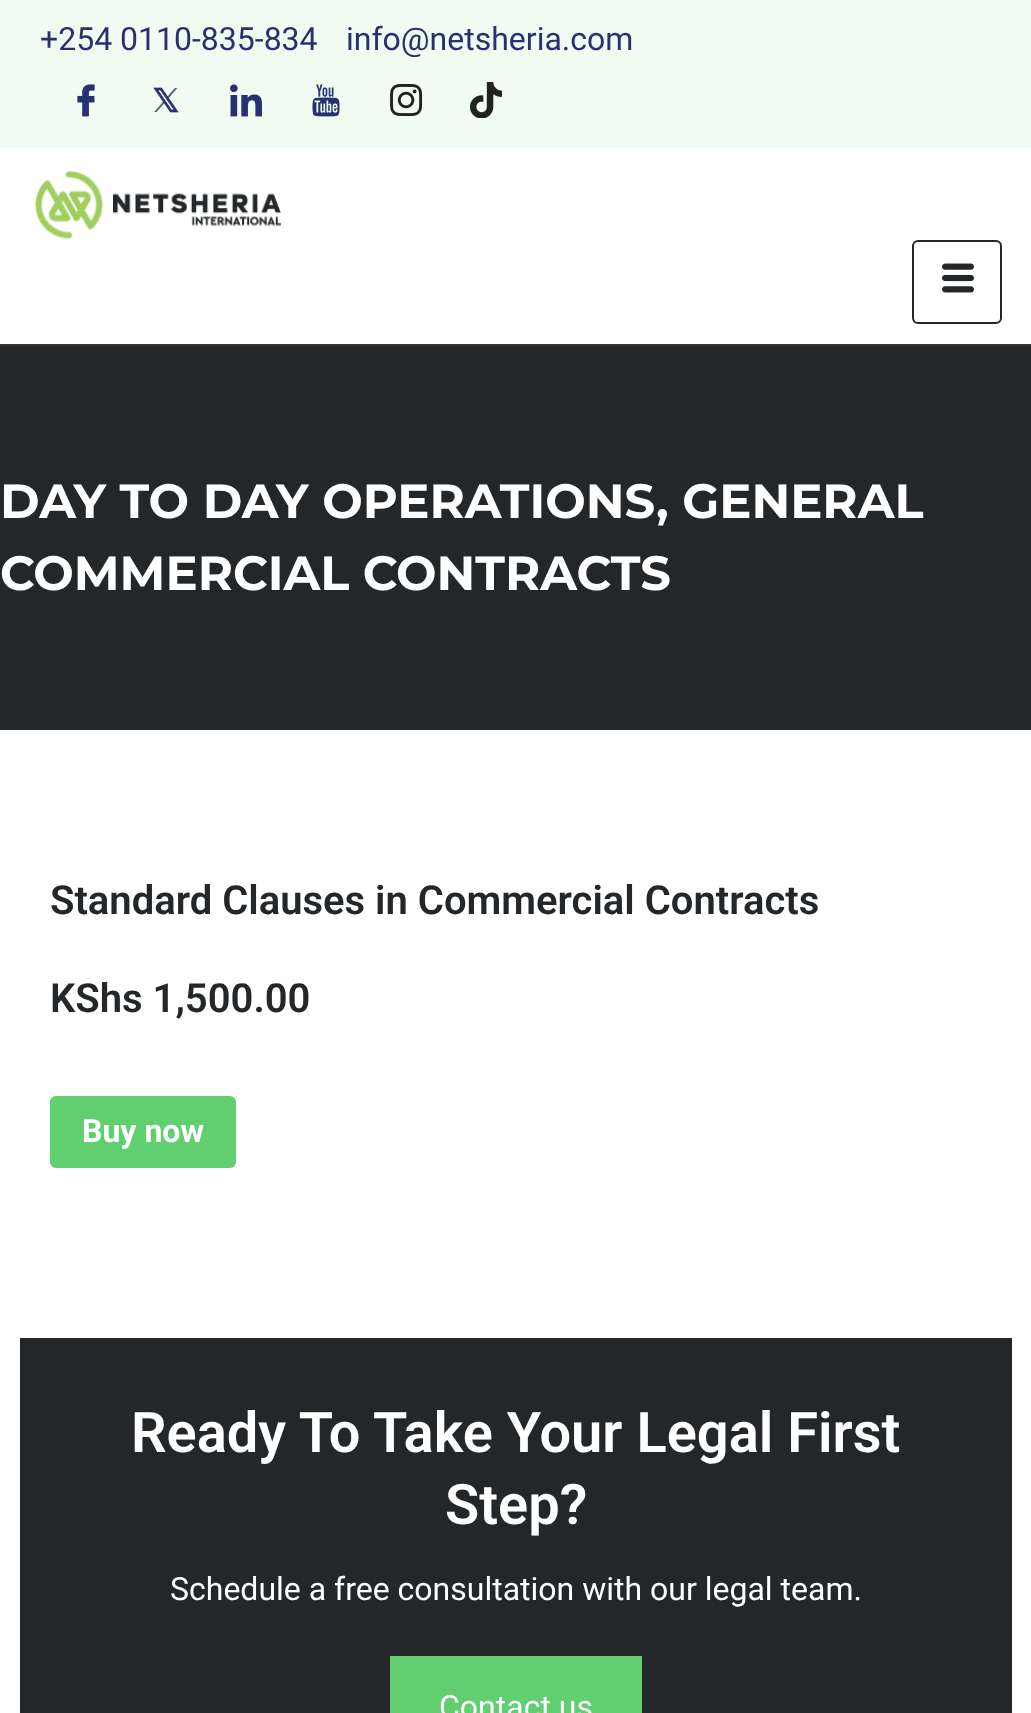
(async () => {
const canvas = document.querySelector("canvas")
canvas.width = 1031
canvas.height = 1713
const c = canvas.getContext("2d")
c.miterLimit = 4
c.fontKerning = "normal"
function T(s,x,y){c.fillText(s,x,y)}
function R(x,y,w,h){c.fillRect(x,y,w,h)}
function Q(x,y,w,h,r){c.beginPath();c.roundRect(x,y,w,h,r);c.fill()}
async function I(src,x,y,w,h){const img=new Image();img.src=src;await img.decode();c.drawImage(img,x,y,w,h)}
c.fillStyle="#fff"
R(0,0,1031,1713)
c.fillStyle="#f0fbf1"
R(0,0,1031,148)
c.font="32px Roboto"
c.fillStyle="#273171"
T("+254 0110-835-834",40,50)
T("info@netsheria.com",346,50)
await I("1.png",77,84,18,33)
await I("2.png",153,87,26,26)
await I("3.png",230,84,32,33)
await I("4.png",312,84,28,33)
await I("5.png",390,84,33,32)
await I("6.png",470,82,32,36)
c.fillStyle="#333"
R(0,344,1031,2)
await I("7.png",35,171,246,69)
c.beginPath()
c.roundRect(913,241,88,82,5)
c.strokeStyle="#242729"
c.lineWidth=2
c.stroke()
await I("8.png",942,263,32,30)
c.fillStyle="#242729"
R(0,346,1031,384)
c.font="bold 48px Montserrat"
c.fillStyle="#fff"
T("DAY TO DAY OPERATIONS",0,518)
T(", GENERAL",656,518)
T("COMMERCIAL CONTRACTS",0,590)
c.font="600 40px Roboto"
c.fillStyle="#242729"
T("Standard Clauses in Commercial Contracts",50,914)
T("KShs 1,500.00",50,1012)
c.fillStyle="#61ce70"
Q(50,1096,186,72,6)
c.font="bold 32px Roboto"
c.fillStyle="#fff"
T("Buy now",82,1142)
c.fillStyle="#242729"
R(20,1338,992,375)
c.font="600 56px Roboto"
c.fillStyle="#fff"
T("Ready To Take Your Legal First",131,1452)
T("Step?",445,1524)
c.font="32px Roboto"
T("Schedule a free consultation with our legal team.",170,1600)
c.fillStyle="#61ce70"
R(390,1656,252,57)
c.fillStyle="#fff"
T("Contact us",439,1718)
})()
